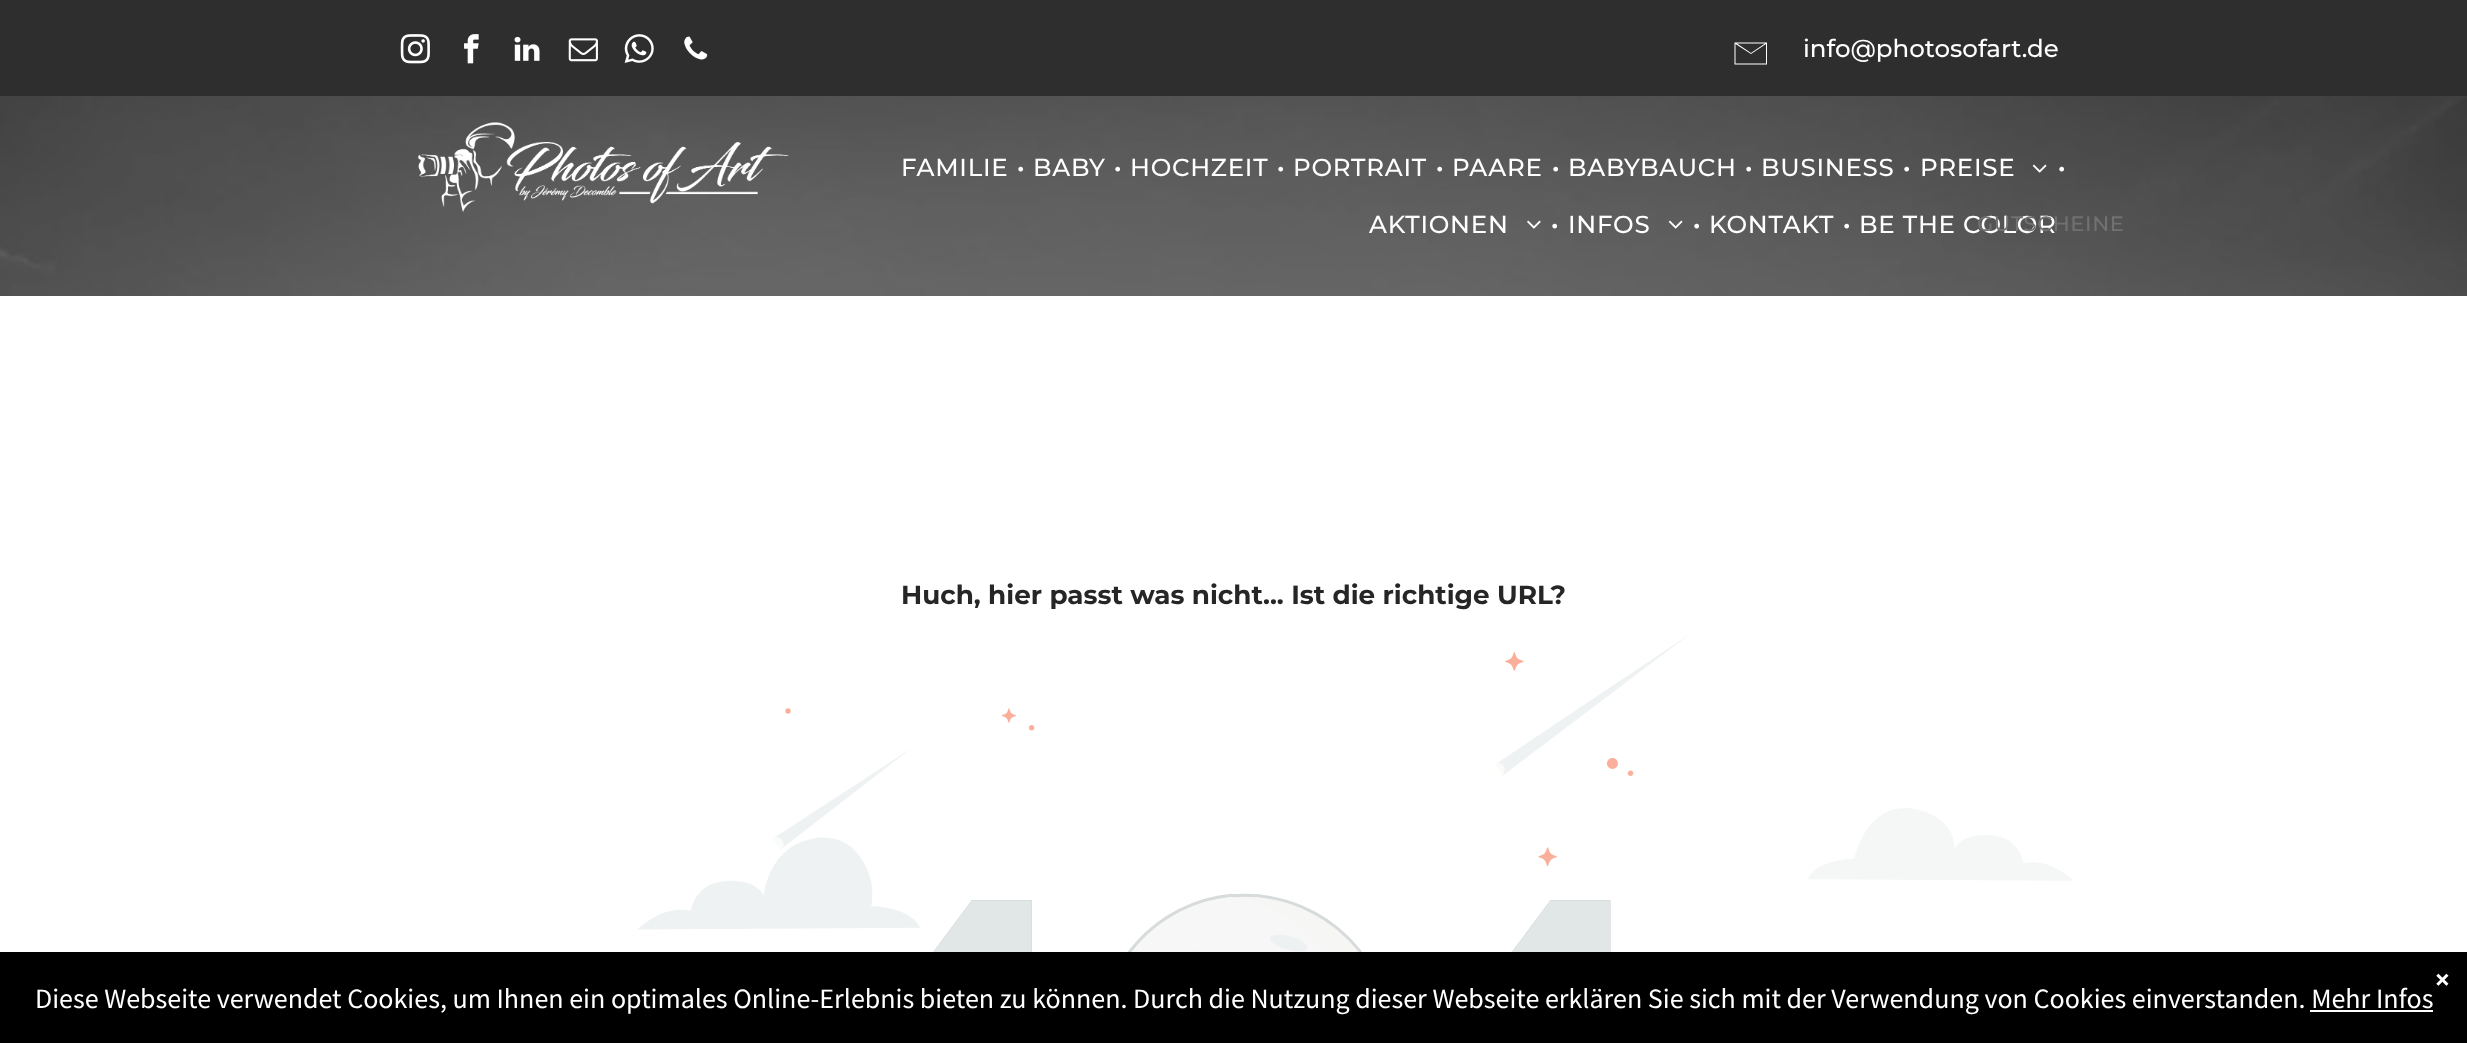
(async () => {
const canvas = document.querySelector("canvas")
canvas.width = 2467
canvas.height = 1043
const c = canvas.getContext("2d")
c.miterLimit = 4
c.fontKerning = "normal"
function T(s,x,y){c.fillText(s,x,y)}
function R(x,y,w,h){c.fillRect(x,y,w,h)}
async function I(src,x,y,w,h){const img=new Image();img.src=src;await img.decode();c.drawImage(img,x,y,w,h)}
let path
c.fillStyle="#fff"
R(0,0,2467,1043)
await I("1.png",0,96,2467,200)
c.fillStyle="#00000099"
R(0,96,2467,200)
c.fillStyle="#2e2e2e"
R(0,0,2467,96)
await I("2.png",400,34,30,30)
await I("3.png",464,34,15,30)
await I("4.png",514,36,26,25)
await I("5.png",568,38,30,24)
await I("6.png",624,34,30,29)
await I("7.png",684,36,24,24)
c.fillStyle="#fff"
path = new Path2D("M1734.5 42.5v22h32.5v-22zm30.5 1l-14 9.5l-14-9.5zm-29.5 20v-19.5l15.5 10l15-10v19.5z")
c.fill(path)
c.font="500 24.5px Montserrat"
T("info@photosofart.de",1803,57)
await I("8.png",418,122,371,90)
c.letterSpacing="0.75px"
T("FAMILIE",901,176)
c.letterSpacing="0px"
c.font="bold 24.5px Montserrat"
T("·",1017,176)
c.letterSpacing="0.75px"
c.font="500 24.5px Montserrat"
T("BABY",1033,176)
c.letterSpacing="0px"
c.font="bold 24.5px Montserrat"
T("·",1114,176)
c.letterSpacing="0.75px"
c.font="500 24.5px Montserrat"
T("HOCHZEIT",1130,176)
c.letterSpacing="0px"
c.font="bold 24.5px Montserrat"
T("·",1277,176)
c.letterSpacing="0.75px"
c.font="500 24.5px Montserrat"
T("PORTRAIT",1293,176)
c.letterSpacing="0px"
c.font="bold 24.5px Montserrat"
T("·",1436,176)
c.letterSpacing="0.75px"
c.font="500 24.5px Montserrat"
T("PAARE",1452,176)
c.letterSpacing="0px"
c.font="bold 24.5px Montserrat"
T("·",1552,176)
c.letterSpacing="0.75px"
c.font="500 24.5px Montserrat"
T("BABYBAUCH",1568,176)
c.letterSpacing="0px"
c.font="bold 24.5px Montserrat"
T("·",1745,176)
c.letterSpacing="0.75px"
c.font="500 24.5px Montserrat"
T("BUSINESS",1761,176)
c.letterSpacing="0px"
c.font="bold 24.5px Montserrat"
T("·",1903,176)
c.letterSpacing="0.75px"
c.font="500 24.5px Montserrat"
T("PREISE",1920,176)
await I("9.png",2032,164,15,9)
c.letterSpacing="0px"
c.font="bold 24.5px Montserrat"
T("·",2058,176)
c.letterSpacing="0.75px"
c.font="500 24.5px Montserrat"
T("BE THE COLOR",1859,233)
c.letterSpacing="0.6px"
c.font="500 21px Montserrat"
c.fillStyle="#717171"
T("GUTSCHEINE",1977,231)
c.letterSpacing="0.75px"
c.font="500 24.5px Montserrat"
c.fillStyle="#fff"
T("AKTIONEN",1369,233)
await I("10.png",1527,220,14,9)
c.letterSpacing="0px"
c.font="bold 24.5px Montserrat"
T("·",1551,233)
c.letterSpacing="0.75px"
c.font="500 24.5px Montserrat"
T("INFOS",1568,233)
await I("11.png",1668,220,15,9)
c.letterSpacing="0px"
c.font="bold 24.5px Montserrat"
T("·",1693,233)
c.letterSpacing="0.75px"
c.font="500 24.5px Montserrat"
T("KONTAKT",1709,233)
c.letterSpacing="0px"
c.font="bold 24.5px Montserrat"
T("·",1843,233)
c.font="bold 26.25px Montserrat"
c.fillStyle="#262626"
T("Huch, hier passt was nicht... Ist die richtige URL?",901,604)
await I("12.png",637,636,1436,316)
c.fillStyle="#000"
R(0,952,2467,91)
c.font="bold 28px Source Sans Pro"
c.fillStyle="#fff"
T("×",2435,989)
c.font="28px Source Sans Pro"
T("Diese Webseite verwendet Cookies, um Ihnen ein optimales Online-Erlebnis bieten zu können. Durch die Nutzung dieser Webseite erklären Sie sich mit der Verwendung von Cookies einverstanden. Mehr Infos",35,1008)
R(2310,1010,123,2)
})()
